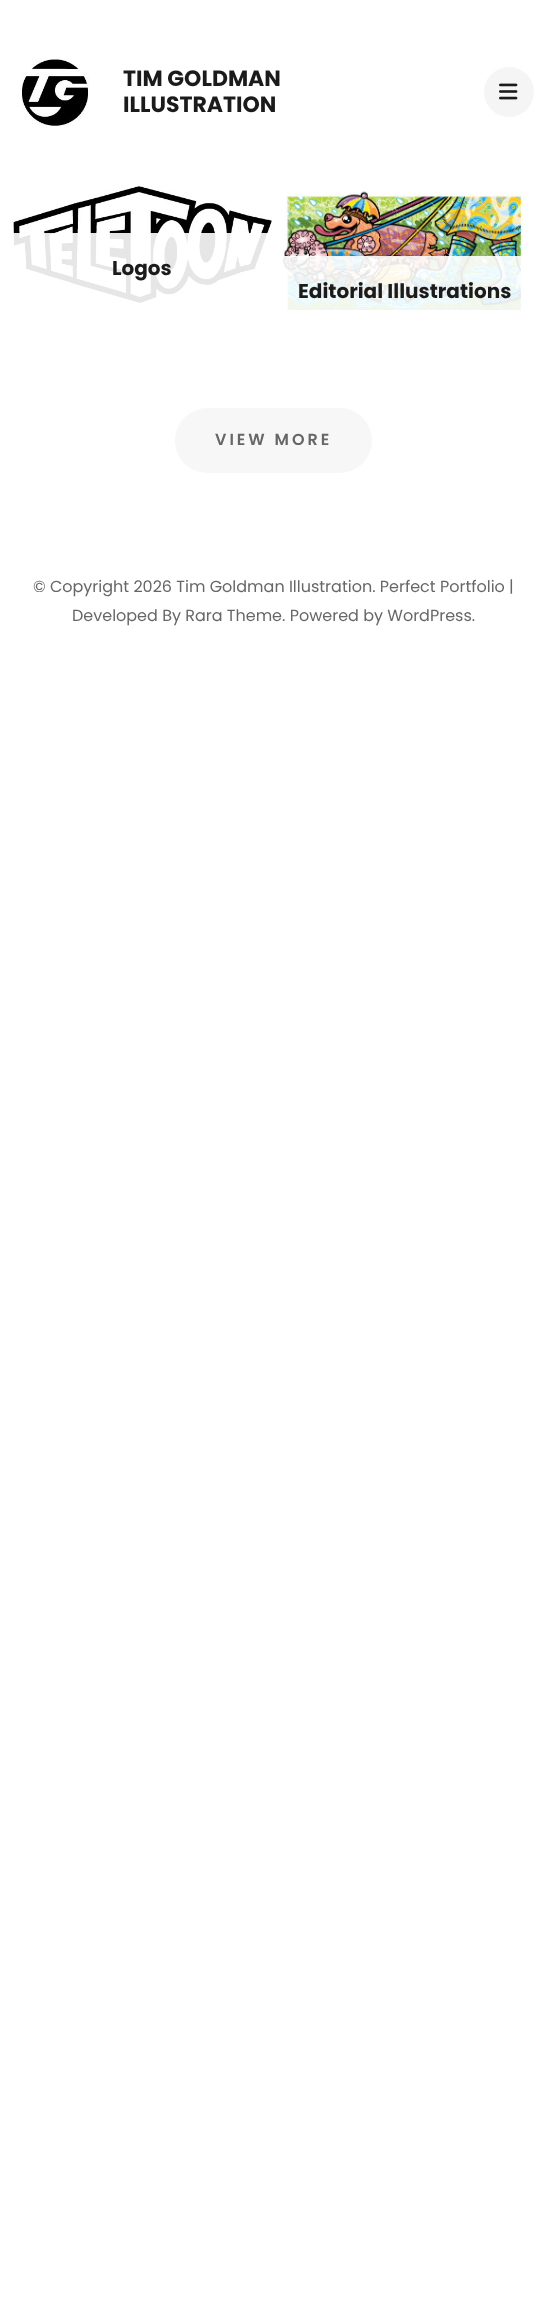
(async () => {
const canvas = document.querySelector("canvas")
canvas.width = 547
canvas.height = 2319
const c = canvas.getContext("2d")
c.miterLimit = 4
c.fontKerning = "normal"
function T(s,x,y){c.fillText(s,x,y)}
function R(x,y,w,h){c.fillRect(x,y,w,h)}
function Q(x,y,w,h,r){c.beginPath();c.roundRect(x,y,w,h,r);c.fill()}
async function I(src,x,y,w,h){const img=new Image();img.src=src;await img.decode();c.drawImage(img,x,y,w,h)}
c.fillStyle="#fff"
R(0,0,547,2319)
await I("1.png",22,59,67,67)
c.font="bold 22px Poppins"
c.fillStyle="#1c1b1b"
T("TIM GOLDMAN",123,86)
T("ILLUSTRATION",123,112)
c.fillStyle="#f5f5f5"
c.beginPath()
c.arc(509,92,25,0,7)
c.fill()
await I("2.png",499,83,19,17)
await I("3.png",13,186,259,117)
c.fillStyle="#ffffffe6"
R(13,233,257,70)
c.font="bold 20px Poppins"
c.fillStyle="#1c1b1b"
T("Logos",112,275)
await I("4.png",282,191,243,122)
c.fillStyle="#ffffffe6"
R(282,256,243,57)
c.fillStyle="#1c1b1b"
T("Editorial Illustrations",298,298)
c.fillStyle="#f7f7f7"
Q(175,408,197,65,32.5)
c.letterSpacing="3px"
c.font="600 16px Poppins"
c.fillStyle="#676767"
T("VIEW MORE",215,445)
c.letterSpacing="0px"
c.font="16px Poppins"
T("© Copyright 2026 Tim Goldman Illustration. Perfect Portfolio |",33,592)
T("Developed By Rara Theme. Powered by WordPress.",72,621)
})()
